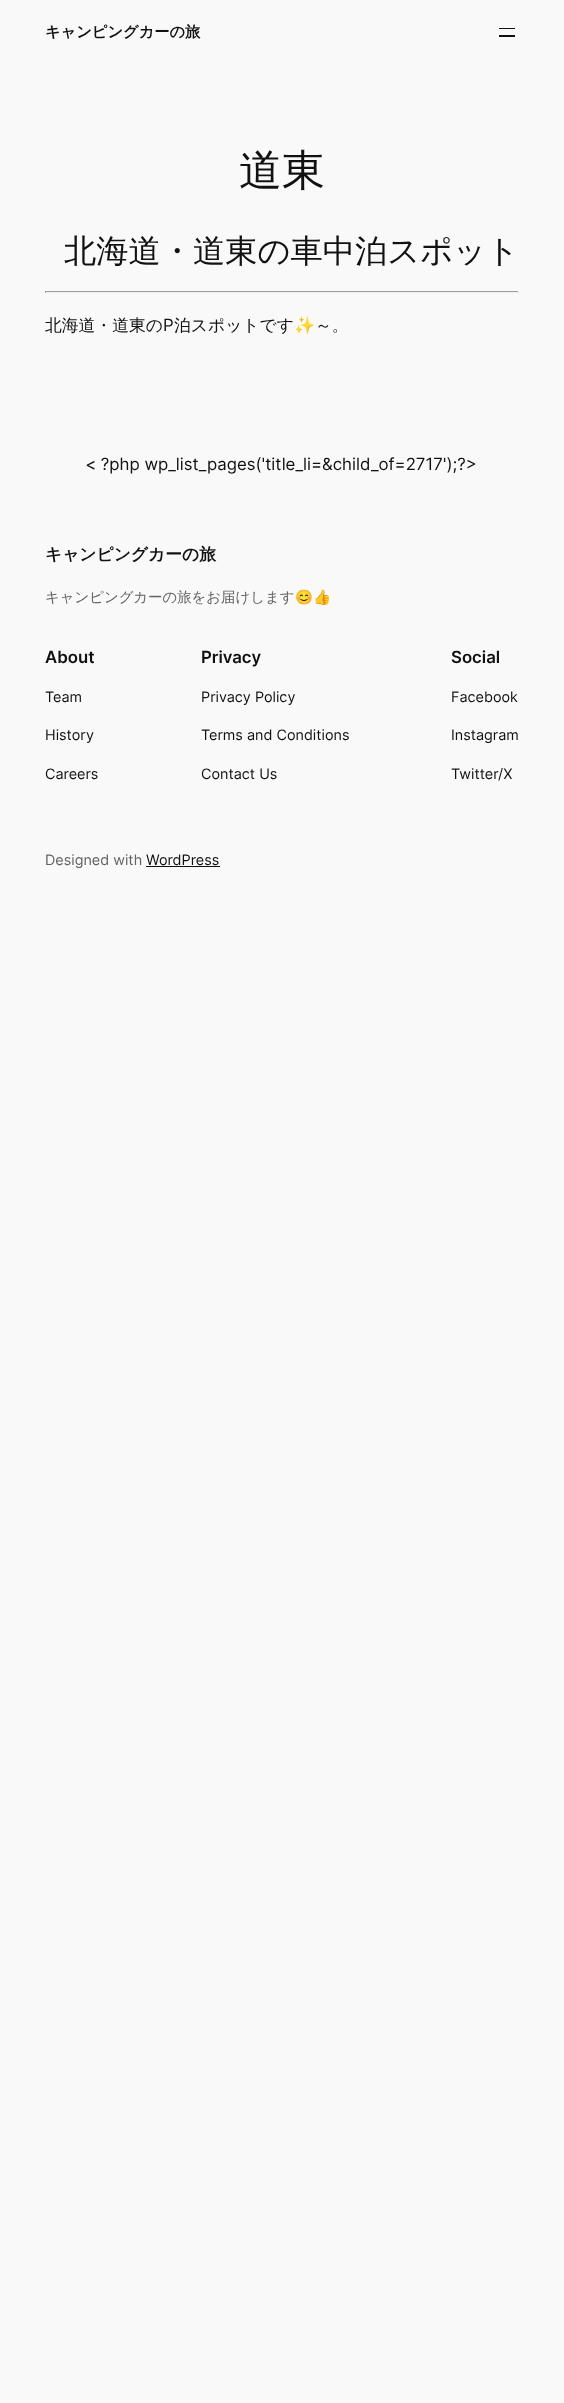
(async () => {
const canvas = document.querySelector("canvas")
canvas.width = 564
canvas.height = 2403
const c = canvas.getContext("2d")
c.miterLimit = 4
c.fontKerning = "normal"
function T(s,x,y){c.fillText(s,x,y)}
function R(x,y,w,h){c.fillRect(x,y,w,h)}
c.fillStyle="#f9f9f9"
R(0,0,564,2403)
c.font="bold 15.25px WenQuanYi Zen Hei"
c.fillStyle="#111"
T("キャンピングカーの旅",45,37)
R(499,28,16,1)
R(499,35,16,2)
c.font="500 43px WenQuanYi Zen Hei"
T("道東",239,185)
c.font="500 32.25px WenQuanYi Zen Hei"
T("北海道・道東の車中泊スポット",64,262)
c.fillStyle="#9f9f9f"
R(45,291,474,1)
c.fillStyle="#eee"
R(518,291,1,2)
R(45,292,474,1)
c.fillStyle="#9f9f9f"
R(45,291,1,2)
c.font="500 16.8px WenQuanYi Zen Hei"
c.fillStyle="#111"
T("北海道・道東の",45,331)
c.font="16.8px Inter"
T("P",163,331)
c.font="500 16.8px WenQuanYi Zen Hei"
T("泊スポットです",174,331)
c.font="16.8px Noto Color Emoji"
T("✨",294,331)
c.font="500 16.8px WenQuanYi Zen Hei"
T("～。",315,331)
c.font="16.8px Inter"
T("< ?php wp_list_pages('title_li=&child_of=2717');?>",85,470)
c.font="bold 16.8px WenQuanYi Zen Hei"
T("キャンピングカーの旅",45,560)
c.font="500 14.4px WenQuanYi Zen Hei"
c.fillStyle="#636363"
T("キャンピングカーの旅をお届けします",45,602)
c.font="14.4px Noto Color Emoji"
T("😊👍",295,602)
c.font="600 16.8px Inter"
c.fillStyle="#111"
T("About",45,663)
c.font="14.4px Inter"
T("Team",45,702)
T("History",45,740)
T("Careers",45,779)
c.font="600 16.8px Inter"
T("Privacy",201,663)
c.font="14.4px Inter"
T("Privacy Policy",201,702)
T("Terms and Conditions",201,740)
T("Contact Us",201,779)
c.font="600 16.8px Inter"
T("Social",451,663)
c.font="14.4px Inter"
T("Facebook",451,702)
T("Instagram",451,740)
T("Twitter/X",451,779)
c.fillStyle="#636363"
T("Designed with",45,865)
c.fillStyle="#111"
T("WordPress",146,865)
R(146,866,74,1)
})()
